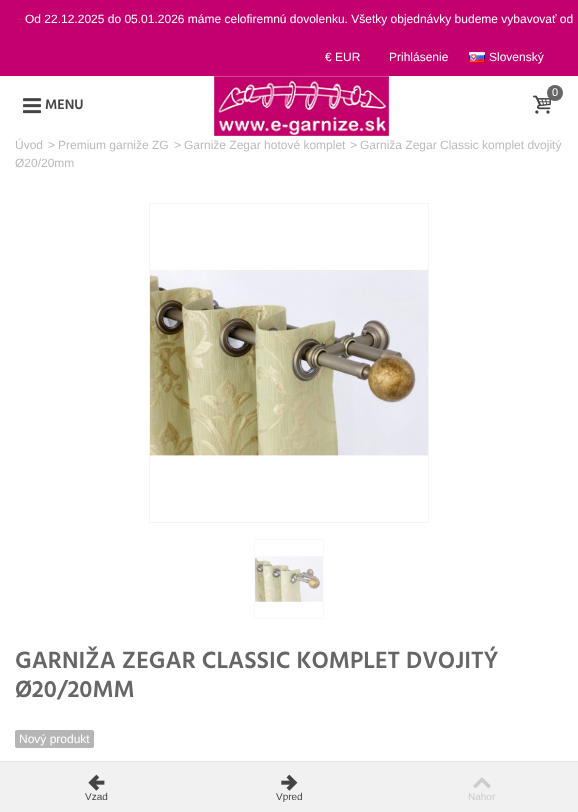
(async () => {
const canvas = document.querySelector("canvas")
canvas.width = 578
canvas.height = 812
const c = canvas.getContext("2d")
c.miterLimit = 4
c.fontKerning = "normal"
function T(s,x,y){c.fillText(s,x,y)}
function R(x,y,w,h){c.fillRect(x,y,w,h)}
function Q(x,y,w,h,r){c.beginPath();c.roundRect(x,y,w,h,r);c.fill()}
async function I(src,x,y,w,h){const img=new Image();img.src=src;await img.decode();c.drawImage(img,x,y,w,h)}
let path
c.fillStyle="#fff"
R(0,0,578,812)
c.fillStyle="#c3006d"
R(0,0,578,76)
c.font="12px Liberation Sans"
c.fillStyle="#fff"
T("Od 22.12.2025 do 05.01.2026 máme celofiremnú dovolenku. Všetky objednávky budeme vybavovať od",25,23)
T("€ EUR",325,61)
T("Prihlásenie",389,61)
await I("1.png",469,52,16,11)
T("Slovenský",489,61)
await I("2.png",214,76,175,60)
await I("3.png",533,95,18,19)
c.fillStyle="#666"
c.beginPath()
c.arc(555,93,8,0,7)
c.fill()
c.font="11px Liberation Sans"
c.fillStyle="#fff"
T("0",552,96)
await I("4.png",23,98,18,16)
c.font="600 14px Hind"
c.fillStyle="#444"
T("MENU",45,109)
c.font="12px Liberation Sans"
c.fillStyle="#bbb"
T("Úvod",15,149)
T(">",48,149)
T("Premium garniže ZG",58,149)
T(">",174,149)
T("Garniže Zegar hotové komplet",184,149)
T(">",350,149)
T("Garniža Zegar Classic komplet dvojitý",360,149)
T("Ø20/20mm",15,167)
c.strokeStyle="#f5f5f5"
c.strokeRect(149.5,203.5,279,319)
await I("5.png",150,268,278,190)
c.strokeStyle="#f9f9f9"
c.strokeRect(254.5,539.5,69,79)
await I("6.png",255,556,68,47)
c.font="600 24px Hind"
c.fillStyle="#666"
T("GARNIŽA ZEGAR CLASSIC KOMPLET DVOJITÝ",15,668)
T("Ø20/20MM",15,697)
c.fillStyle="#b5b5b5"
Q(15,730,79,18,2)
c.font="12px Liberation Sans"
c.fillStyle="#fff"
T("Nový produkt",19,743)
c.fillStyle="#f1f1f1"
R(0,762,578,50)
c.fillStyle="#e5e5e5"
R(0,761,578,1)
await I("7.png",88,774,17,17)
c.font="10px Liberation Sans"
c.fillStyle="#444"
T("Vzad",85,800)
await I("8.png",281,774,17,17)
T("Vpred",276,800)
c.fillStyle="#ccc"
path = new Path2D("M473 786l9-9l9 9l-2.5 2.5l-6.5-6.5l-6.5 6.5z")
c.fill(path)
T("Nahor",468,800)
})()
